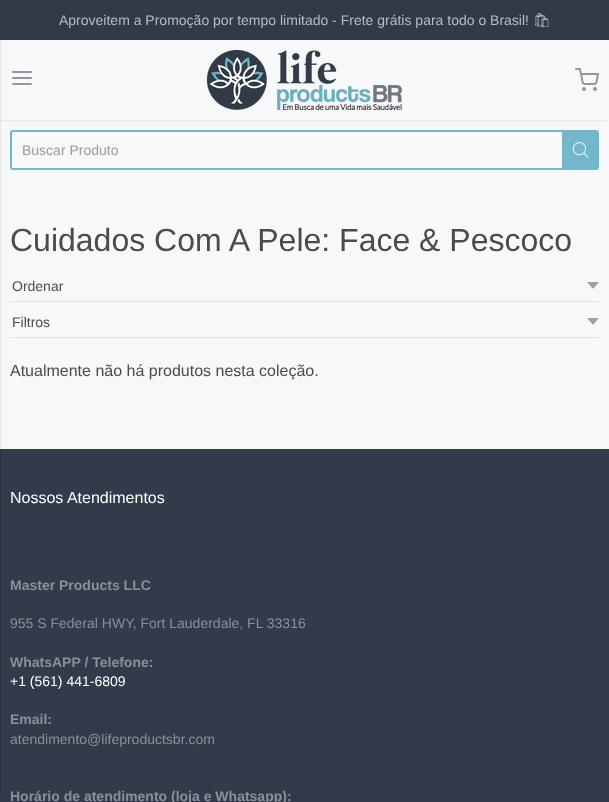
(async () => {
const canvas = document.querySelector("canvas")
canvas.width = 609
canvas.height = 802
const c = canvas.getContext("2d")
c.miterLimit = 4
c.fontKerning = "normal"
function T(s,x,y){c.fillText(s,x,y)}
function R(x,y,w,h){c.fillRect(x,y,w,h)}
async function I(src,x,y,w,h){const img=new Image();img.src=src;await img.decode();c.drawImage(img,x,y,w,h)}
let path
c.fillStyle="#f7f8f9"
R(0,0,609,802)
c.fillStyle="#313a47"
R(0,0,609,40)
c.fillStyle="#00000033"
c.filter="blur(1px)"
c.beginPath()
c.rect(2,44,605,76)
c.fill()
c.filter="none"
c.fillStyle="#f7f8f9"
R(0,42,609,78)
c.fillStyle="#313b49"
R(0,449,609,353)
c.fillStyle="#00000033"
c.filter="blur(1px)"
c.beginPath()
c.rect(-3,2,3,798)
c.fill()
c.filter="none"
c.font="14px Liberation Sans"
c.fillStyle="#babbbd"
T("Aproveitem a Promoção por tempo limitado - Frete grátis para todo o Brasil!",59,25)
c.font="14px Noto Emoji"
T("🛍",533,25)
path = new Path2D("M13 78h18m-18-6h18m-18 12h18")
c.strokeStyle="#93979d"
c.lineWidth=2
c.lineCap="round"
c.lineJoin="round"
c.stroke(path)
await I("1.png",207,50,195,60)
await I("2.png",575,68,24,23)
c.fillStyle="#73b7cc"
path = new Path2D("M13 130h549v40h-549c-2 0-3-1-3-3v-34c0-2 1-3 3-3zm0 2h549v36h-549c-1 0-1 0-1-1v-34c0-1 0-1 1-1z")
c.fill(path,"evenodd")
c.font="14px Liberation Sans"
c.fillStyle="#999b9d"
T("Buscar Produto",22,155)
c.fillStyle="#73b7cc"
c.beginPath()
c.roundRect(563,131,35,38,[0,2,2,0])
c.fill()
c.strokeStyle="#73b7cc"
c.lineJoin="miter"
c.stroke()
await I("3.png",572,142,17,16)
c.font="32px Liberation Sans"
c.fillStyle="#484b4f"
T("Cuidados Com A Pele: Face & Pescoco",10,251)
await I("4.png",587,282,12,7)
c.fillStyle="#e1e3e4"
R(10,301,589,1)
c.font="14px Liberation Sans"
c.fillStyle="#484b4f"
T("Ordenar",12,291)
await I("4.png",587,318,12,7)
c.fillStyle="#e1e3e4"
R(10,337,589,1)
c.fillStyle="#484b4f"
T("Filtros",12,327)
c.font="16px Liberation Sans"
T("Atualmente não há produtos nesta coleção.",10,376)
c.fillStyle="#fff"
T("Nossos Atendimentos",10,503)
c.font="bold 14px Liberation Sans"
c.fillStyle="#8a9098"
T("Master Products LLC",10,590)
c.font="14px Liberation Sans"
T("955 S Federal HWY, Fort Lauderdale, FL 33316",10,628)
c.font="bold 14px Liberation Sans"
T("WhatsAPP / Telefone:",10,667)
c.font="14px Liberation Sans"
c.fillStyle="#fff"
T("+1 (561) 441-6809",10,686)
c.font="bold 14px Liberation Sans"
c.fillStyle="#8a9098"
T("Email:",10,724)
c.font="14px Liberation Sans"
T("atendimento@lifeproductsbr.com",10,744)
c.font="bold 14px Liberation Sans"
T("Horário de atendimento (loja e Whatsapp):",10,801)
})()
